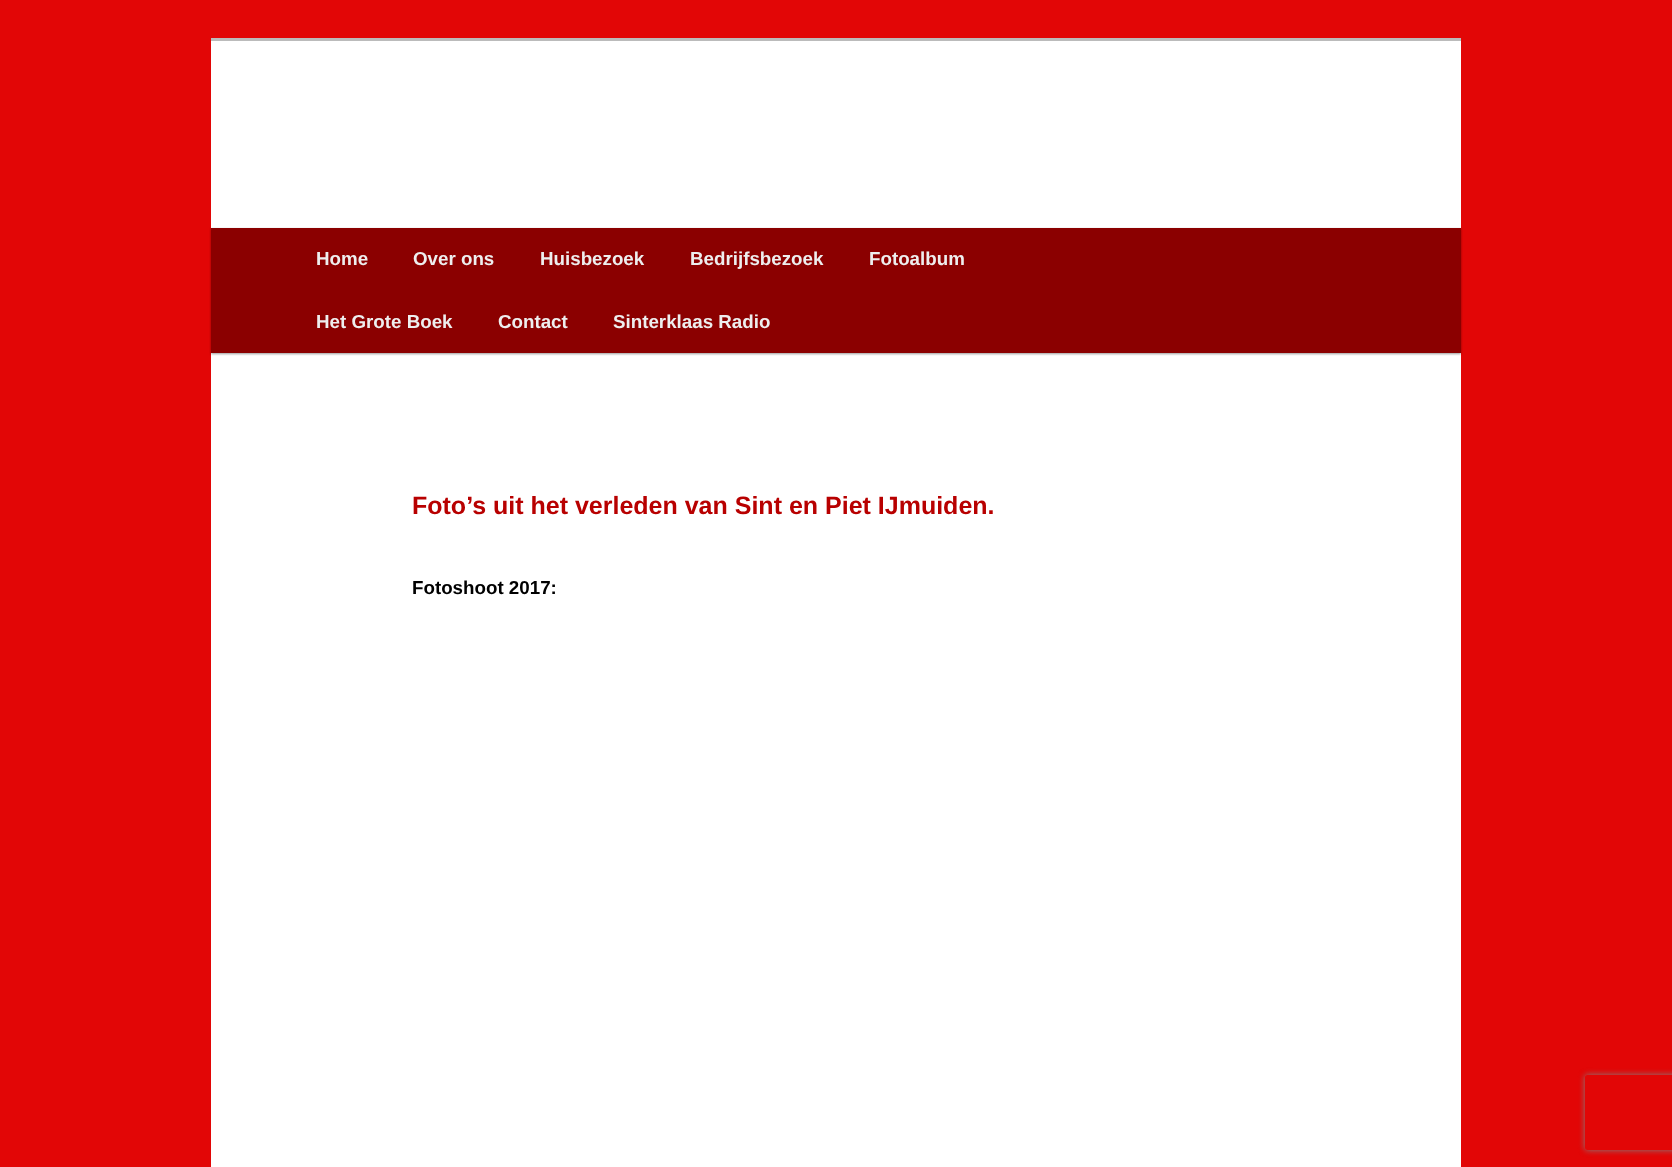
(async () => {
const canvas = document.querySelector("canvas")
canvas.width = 1672
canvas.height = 1167
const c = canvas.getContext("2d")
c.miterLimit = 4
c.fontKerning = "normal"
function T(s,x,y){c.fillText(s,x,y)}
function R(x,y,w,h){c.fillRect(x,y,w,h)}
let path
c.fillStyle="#e20606"
R(0,0,1672,1167)
c.fillStyle="#fff"
R(211,41,1250,1126)
c.fillStyle="#bbb"
R(211,38,1250,3)
c.fillStyle="#00000066"
c.filter="blur(1px)"
c.beginPath()
c.rect(211,229,1250,125)
c.fill()
c.filter="none"
c.fillStyle="#8b0000"
R(211,228,1250,125)
c.font="bold 18.75px Liberation Sans"
c.fillStyle="#eee"
T("Home",316,265)
T("Over ons",413,265)
T("Huisbezoek",540,265)
T("Bedrijfsbezoek",690,265)
T("Fotoalbum",869,265)
T("Het Grote Boek",316,328)
T("Contact",498,328)
T("Sinterklaas Radio",613,328)
c.font="bold 25px Liberation Sans"
c.fillStyle="#b80000"
T("Foto’s uit het verleden van Sint en Piet IJmuiden.",412,514)
c.font="bold 18.75px Liberation Sans"
c.fillStyle="#000"
T("Fotoshoot 2017:",412,594)
c.save()
path = new Path2D("M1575 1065h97v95h-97zm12.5 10h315c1.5 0 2.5 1 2.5 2.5v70c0 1.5-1 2.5-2.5 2.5h-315c-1.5 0-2.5-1-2.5-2.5v-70c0-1.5 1-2.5 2.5-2.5z")
c.clip(path,"evenodd")
c.fillStyle="#808080"
c.filter="blur(3px)"
c.beginPath()
c.roundRect(1585,1075,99,75,2.5)
c.fill()
c.filter="none"
c.restore()
})()
